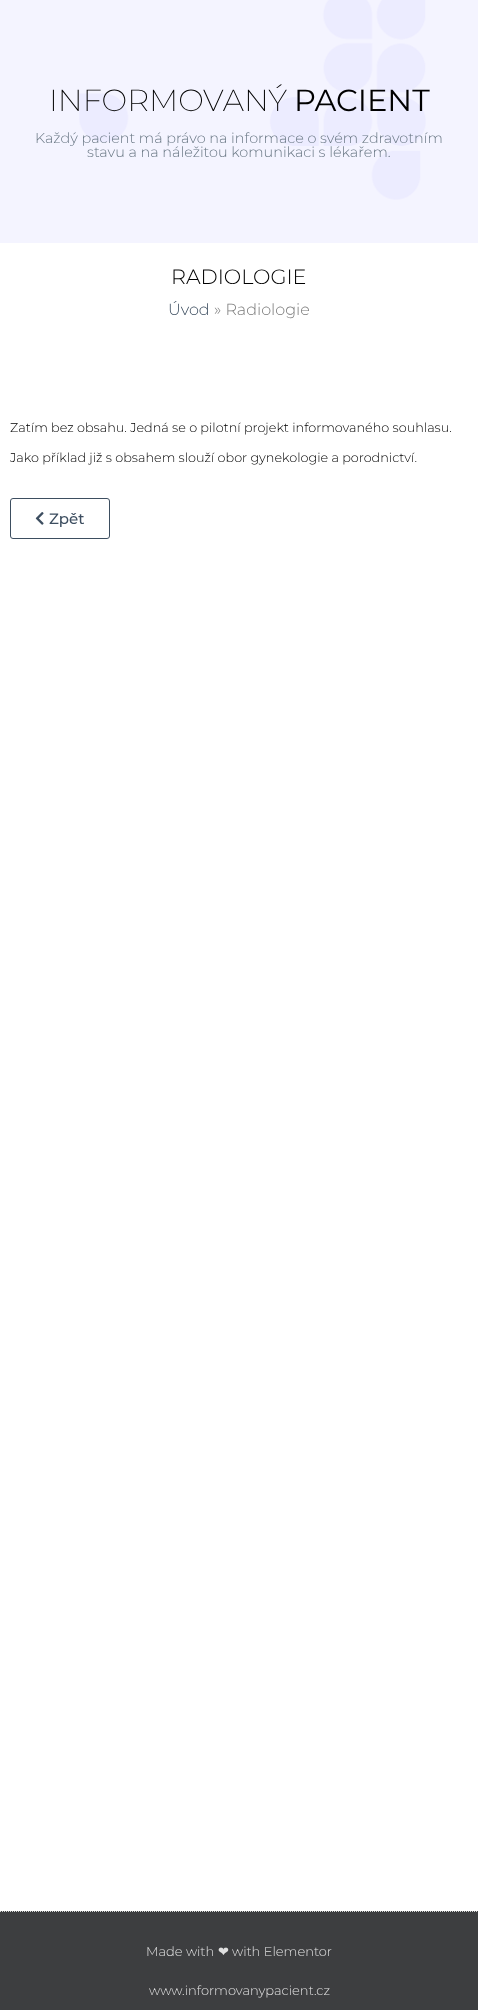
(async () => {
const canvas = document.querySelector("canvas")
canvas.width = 478
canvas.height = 2010
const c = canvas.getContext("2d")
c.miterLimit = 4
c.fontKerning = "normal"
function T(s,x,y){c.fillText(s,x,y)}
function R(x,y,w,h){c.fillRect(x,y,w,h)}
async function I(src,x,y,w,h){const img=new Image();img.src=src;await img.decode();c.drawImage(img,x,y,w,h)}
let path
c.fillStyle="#fff"
R(0,0,478,2010)
c.fillStyle="#f4f4ff"
R(0,0,478,243)
await I("1.png",79,0,347,200)
c.font="200 30.5px Montserrat"
c.fillStyle="#000"
T("INFORMOVANÝ",49,111)
c.font="30.5px Montserrat"
T("PACIENT",294,111)
c.font="300 14.4px Montserrat"
c.fillStyle="#697784"
T("Každý pacient má právo na informace o svém zdravotním",35,143)
T("stavu a na náležitou komunikaci s lékařem.",87,157)
c.font="300 20.75px Montserrat"
c.fillStyle="#000"
T("RADIOLOGIE",171,284)
c.font="300 16px Montserrat"
c.fillStyle="#3d4e60"
T("Úvod",168,315)
c.fillStyle="#7a7a7a"
T("» Radiologie",214,315)
c.font="300 12.8px Montserrat"
c.fillStyle="#000"
T("Zatím bez obsahu. Jedná se o pilotní projekt informovaného souhlasu.",10,432)
T("Jako příklad již s obsahem slouží obor gynekologie a porodnictví.",10,462)
c.beginPath()
c.roundRect(10.5,498.5,99,40,2.5)
c.strokeStyle="#3d4e60"
c.stroke()
await I("2.png",35,512,9,13)
c.font="500 15px Montserrat"
c.fillStyle="#3d4e60"
T("Zpět",49,524)
c.fillStyle="#3d3e40"
R(0,1911,478,99)
path = new Path2D("M0 1911.5h478")
c.strokeStyle="#d6d6d6"
c.setLineDash([1,1])
c.stroke(path)
c.font="300 13px Montserrat"
c.fillStyle="#e0e0e0"
T("Made with",146,1956)
c.font="13px DejaVu Sans"
T("❤",218,1956)
c.font="300 13px Montserrat"
T("with Elementor",232,1956)
T("www.informovanypacient.cz",149,1995)
})()
